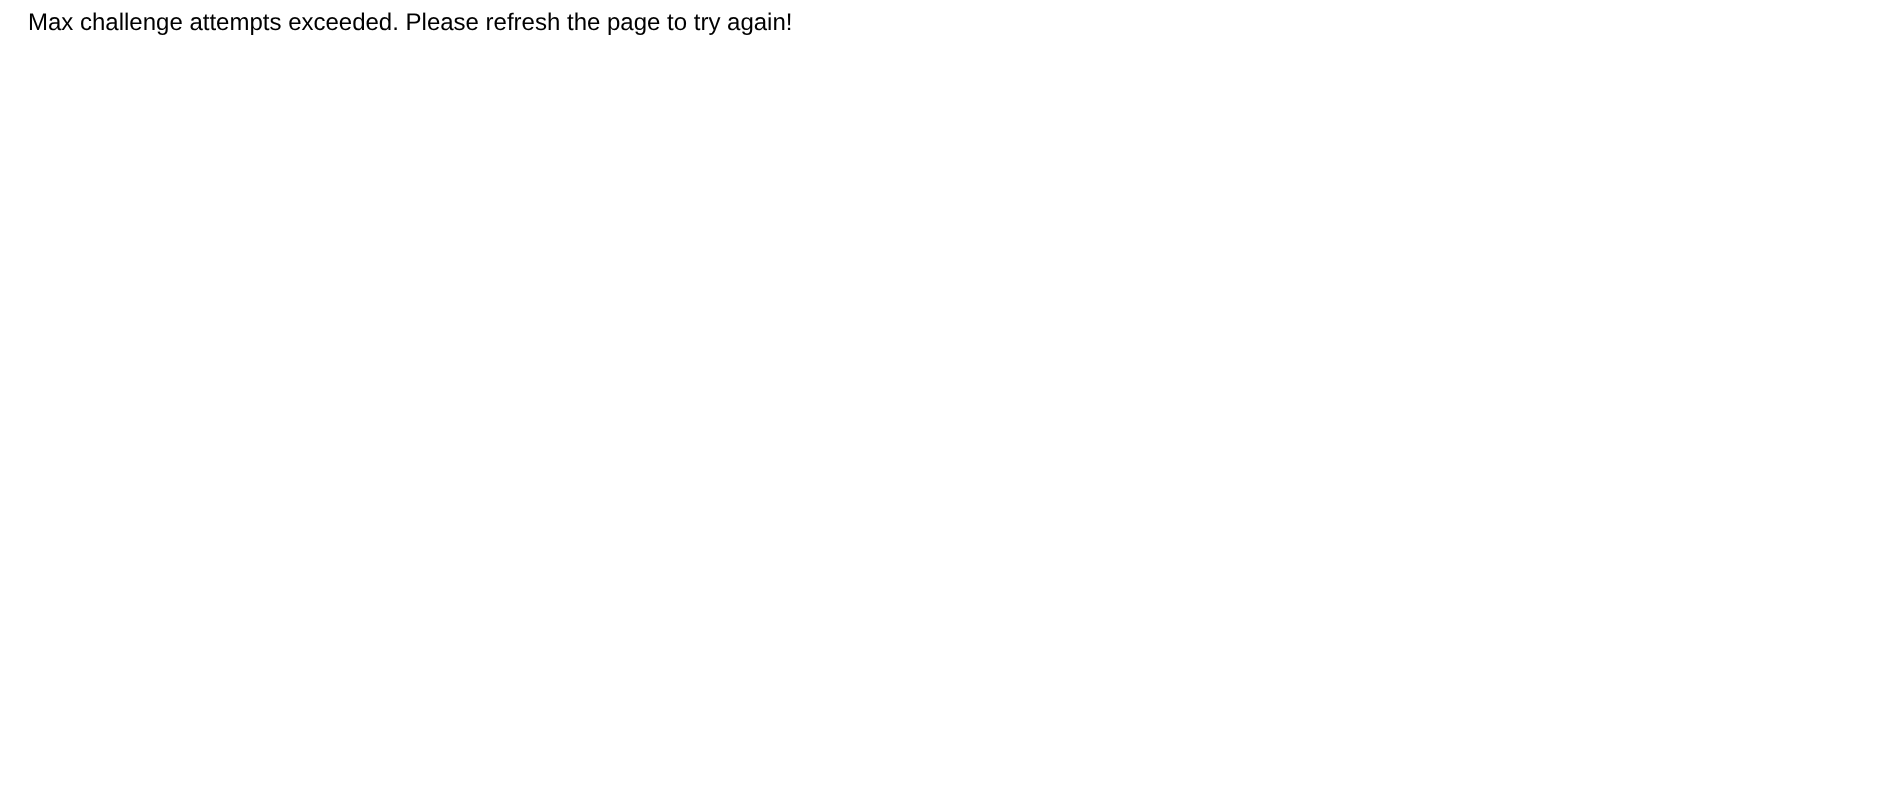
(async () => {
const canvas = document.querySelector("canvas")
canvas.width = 1899
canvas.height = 786
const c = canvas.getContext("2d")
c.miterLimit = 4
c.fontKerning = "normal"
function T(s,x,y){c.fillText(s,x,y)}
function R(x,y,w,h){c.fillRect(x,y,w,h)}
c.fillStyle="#fff"
R(0,0,1899,786)
c.font="24px Liberation Sans"
c.fillStyle="#000"
T("Max challenge attempts exceeded. Please refresh the page to try again!",28,30)
})()
